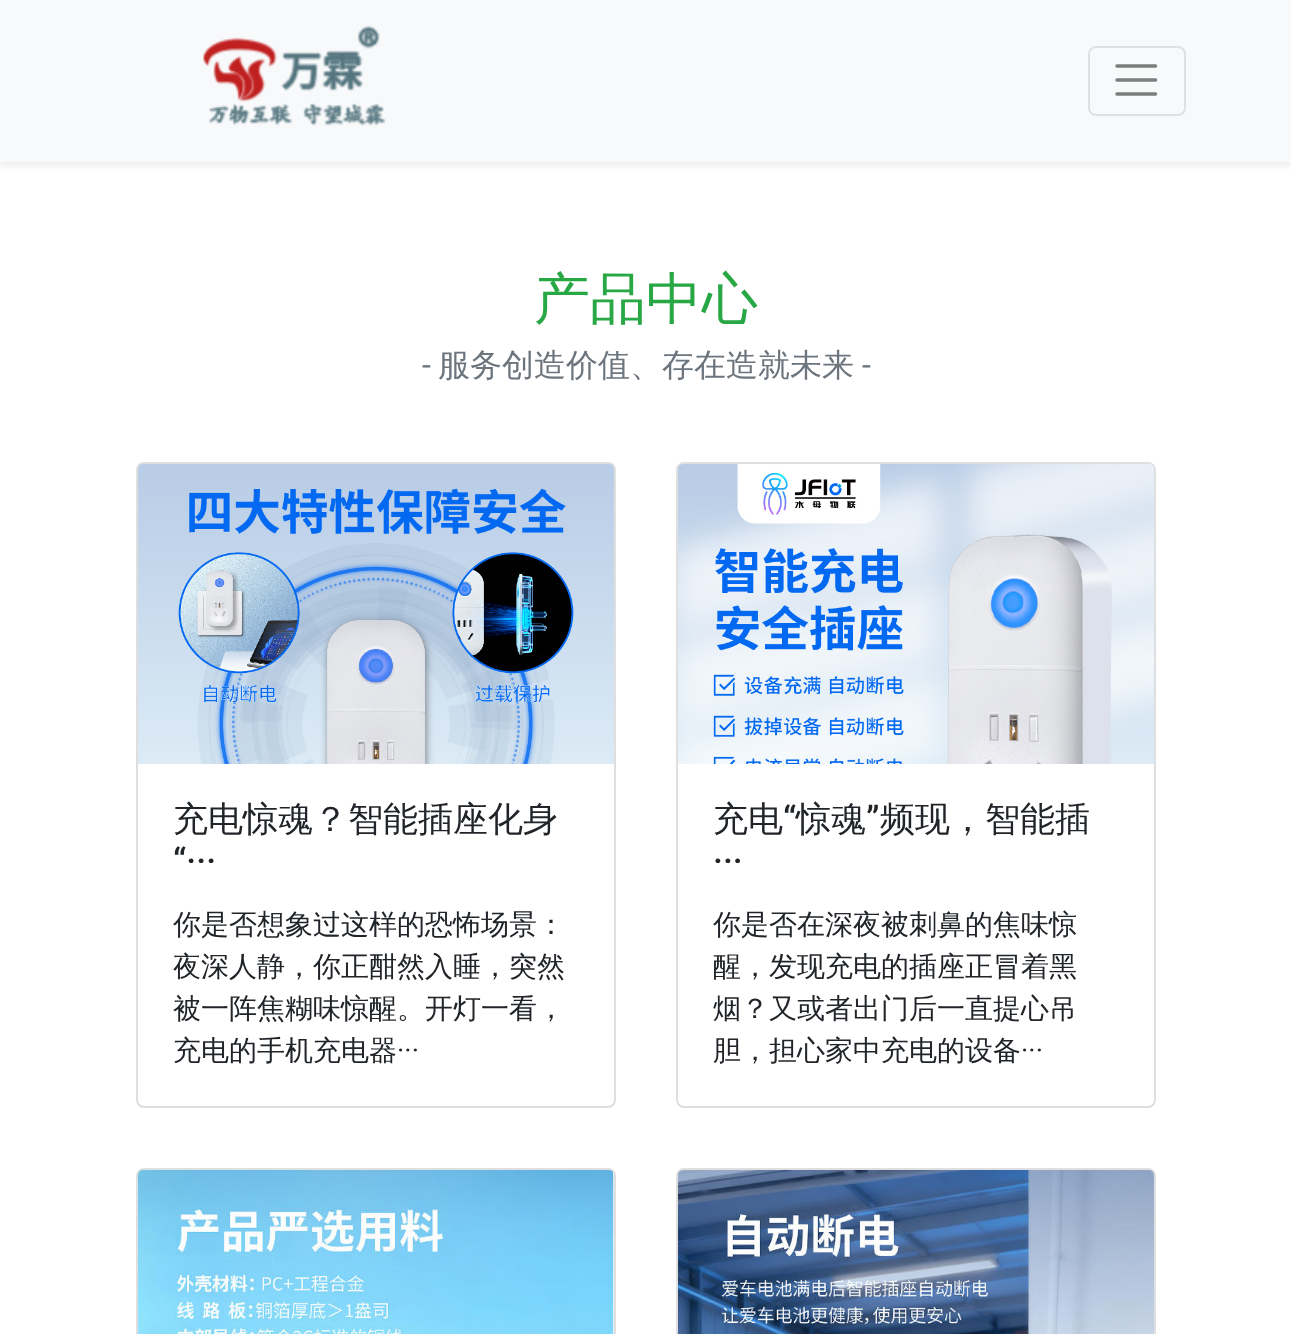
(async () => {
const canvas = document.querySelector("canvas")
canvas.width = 1291
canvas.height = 1334
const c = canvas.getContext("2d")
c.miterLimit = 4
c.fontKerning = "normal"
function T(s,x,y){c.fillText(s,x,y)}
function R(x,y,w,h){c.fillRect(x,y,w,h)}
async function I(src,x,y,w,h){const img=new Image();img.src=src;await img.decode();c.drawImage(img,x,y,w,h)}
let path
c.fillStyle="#fff"
R(0,0,1291,1334)
c.fillStyle="#00000012"
c.filter="blur(3.5px)"
c.beginPath()
c.rect(0,4,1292,162)
c.fill()
c.filter="none"
c.fillStyle="#f8f9fa"
R(0,0,1291,162)
await I("1.png",203,25,183,101)
c.beginPath()
c.roundRect(1089,47,96,68,7)
c.strokeStyle="#dfe0e1"
c.lineWidth=2
c.stroke()
path = new Path2D("M1117 66h38.5m-38.5 14h38.5m-38.5 14h38.5")
c.strokeStyle="#7c7d7d"
c.lineWidth=3.5
c.lineCap="round"
c.stroke(path)
c.font="500 56px WenQuanYi Zen Hei"
c.fillStyle="#28a745"
T("产品中心",534,318)
c.font="32px Roboto"
c.fillStyle="#6c757d"
T("-",422,376)
c.font="500 32px WenQuanYi Zen Hei"
T("服务创造价值、存在造就未来",438,376)
c.font="32px Roboto"
T("-",862,376)
c.beginPath()
c.roundRect(137,463,478,644,7)
c.strokeStyle="#dfdfdf"
c.lineWidth=2
c.stroke()
await I("2.png",138,464,476,300)
c.font="500 35px WenQuanYi Zen Hei"
c.fillStyle="#212529"
T("充电惊魂？智能插座化身",173,831)
c.font="500 35px Roboto"
T("“···",173,873)
c.font="500 28px WenQuanYi Zen Hei"
T("你是否想象过这样的恐怖场景：",173,934)
T("夜深人静，你正酣然入睡，突然",173,976)
T("被一阵焦糊味惊醒。开灯一看，",173,1018)
T("充电的手机充电器",173,1060)
c.font="28px Roboto"
T("···",397,1060)
c.beginPath()
c.roundRect(677,463,478,644,7)
c.stroke()
await I("3.png",678,464,476,300)
c.font="500 35px WenQuanYi Zen Hei"
T("充电",713,831)
c.font="500 35px Roboto"
T("“",783,831)
c.font="500 35px WenQuanYi Zen Hei"
T("惊魂",796,831)
c.font="500 35px Roboto"
T("”",866,831)
c.font="500 35px WenQuanYi Zen Hei"
T("频现，智能插",880,831)
c.font="500 35px Roboto"
T("···",713,873)
c.font="500 28px WenQuanYi Zen Hei"
T("你是否在深夜被刺鼻的焦味惊",713,934)
T("醒，发现充电的插座正冒着黑",713,976)
T("烟？又或者出门后一直提心吊",713,1018)
T("胆，担心家中充电的设备",713,1060)
c.font="28px Roboto"
T("···",1021,1060)
c.beginPath()
c.roundRect(137,1169,478,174,7)
c.stroke()
await I("4.png",138,1170,476,164)
c.beginPath()
c.roundRect(677,1169,478,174,7)
c.stroke()
await I("5.png",678,1170,476,164)
})()
